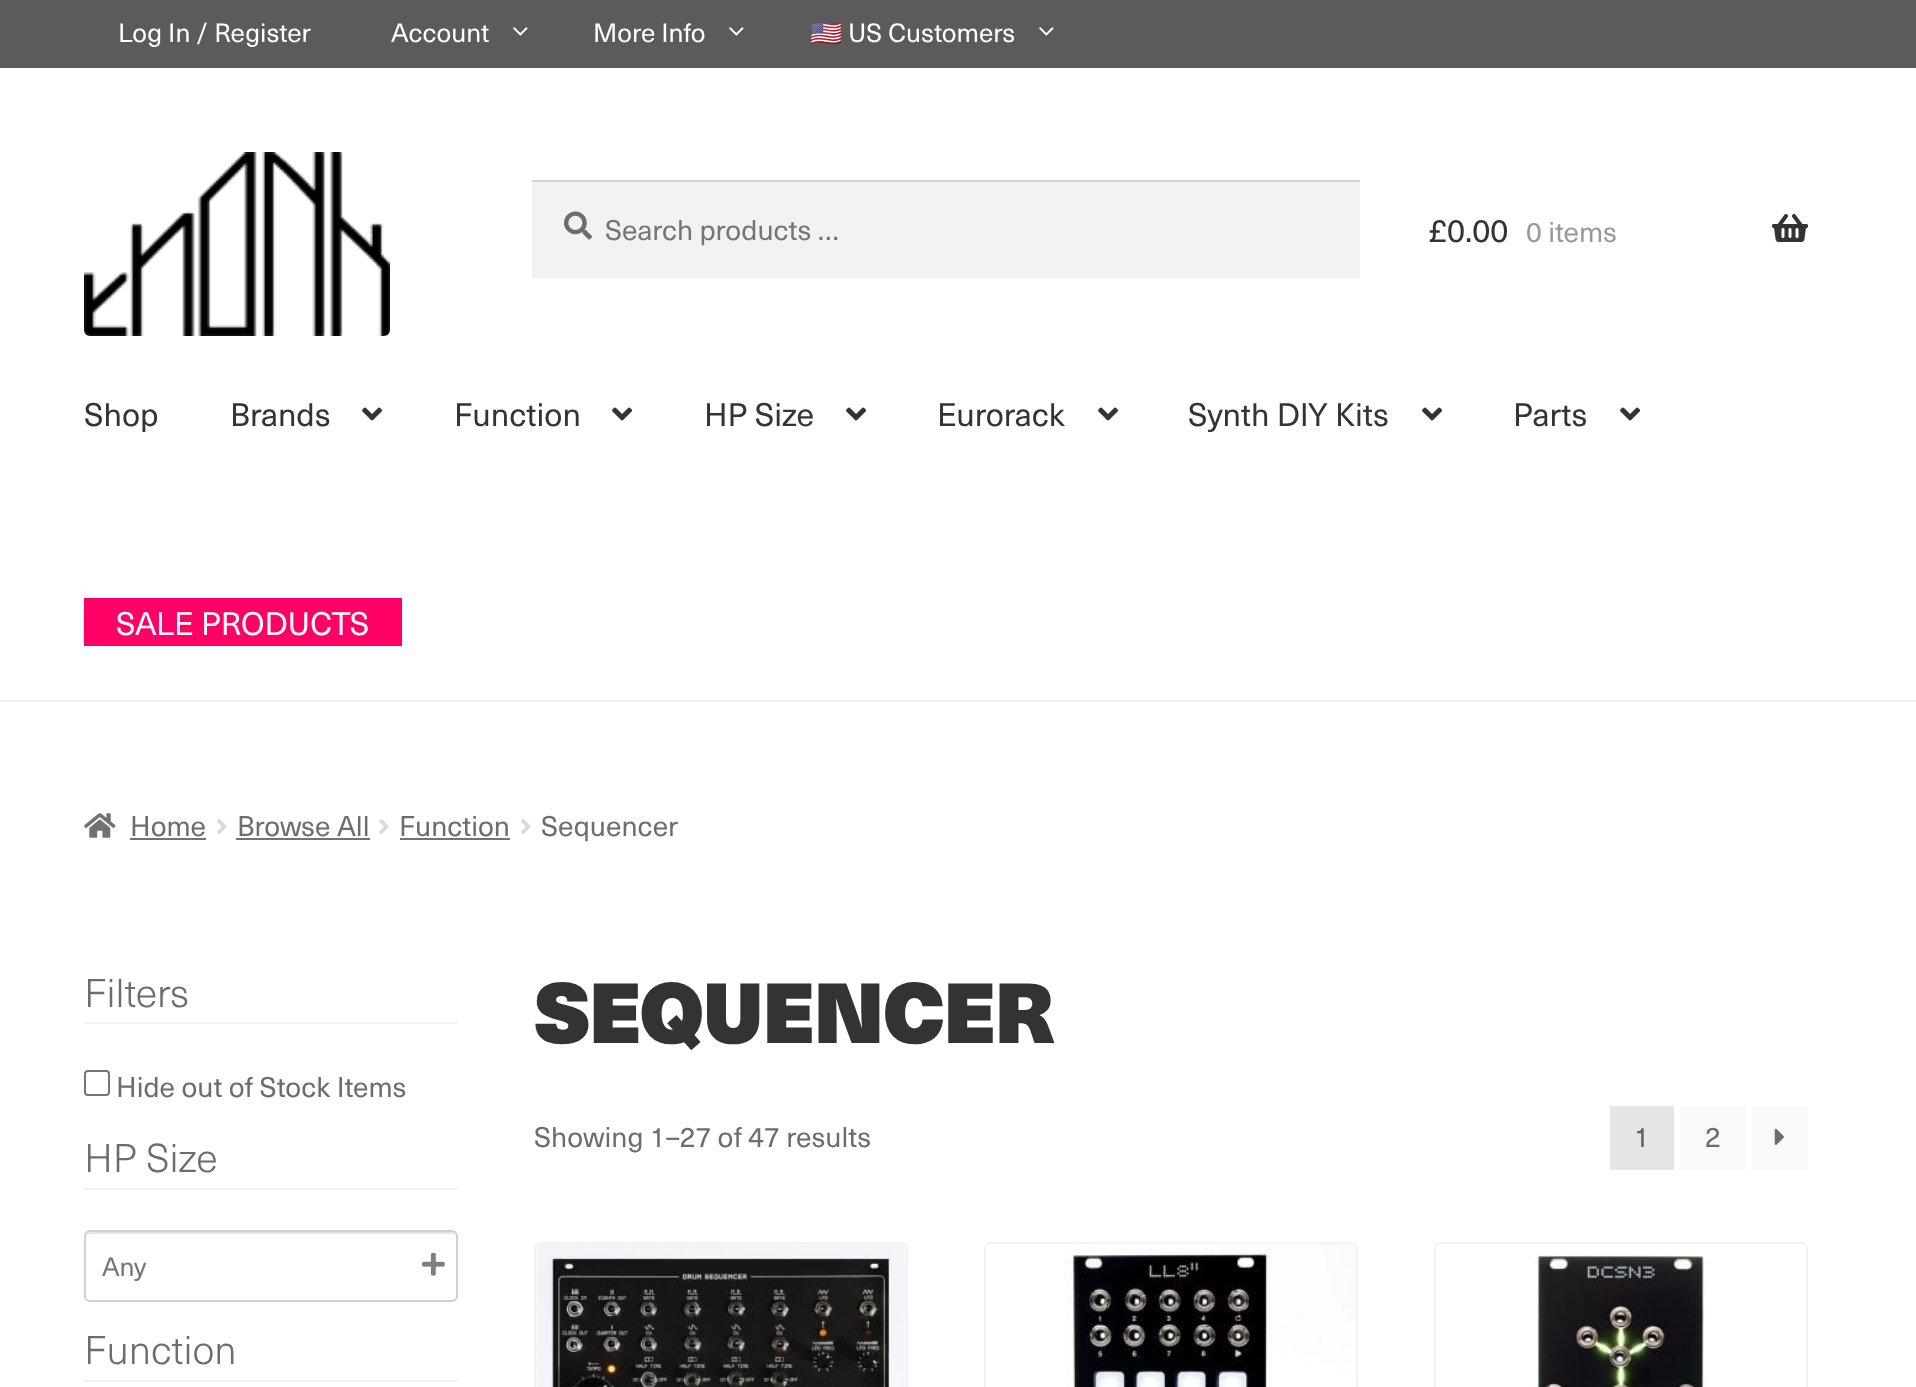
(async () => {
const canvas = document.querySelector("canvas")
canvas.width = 1916
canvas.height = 1387
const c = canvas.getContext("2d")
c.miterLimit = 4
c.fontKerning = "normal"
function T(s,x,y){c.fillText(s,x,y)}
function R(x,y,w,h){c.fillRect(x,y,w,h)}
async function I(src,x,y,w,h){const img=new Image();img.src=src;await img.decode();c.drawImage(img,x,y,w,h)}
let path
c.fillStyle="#fff"
R(0,0,1916,1387)
c.fillStyle="#5b5b5b"
R(0,0,1916,68)
c.font="26px 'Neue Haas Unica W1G'"
c.fillStyle="#fff"
T("Log In / Register",118,42)
T("Account",391,42)
await I("1.png",513,27,15,9)
T("More Info",593,42)
await I("1.png",729,27,15,9)
c.font="26px Noto Color Emoji"
T("🇺🇸",810,42)
c.font="26px 'Neue Haas Unica W1G'"
T("US Customers",848,42)
await I("1.png",1039,27,15,9)
c.fillStyle="#f0f0f0"
R(0,700,1916,2)
await I("2.png",84,152,306,184)
c.fillStyle="#f2f2f2"
R(532,182,828,96)
await I("3.png",564,211,28,29)
c.fillStyle="#d4d4d4"
R(532,180,828,2)
c.font="28px 'Neue Haas Unica W1G'"
c.fillStyle="#757575"
T("Search products …",605,240)
c.font="32px 'Neue Haas Unica W1G'"
c.fillStyle="#333"
T("£0.00",1429,242)
c.font="28px 'Neue Haas Unica W1G'"
c.fillStyle="#999"
T("0 items",1526,242)
await I("4.png",1772,214,36,28)
c.font="32px 'Neue Haas Unica W1G'"
c.fillStyle="#333"
T("Shop",84,426)
T("Brands",230,426)
await I("5.png",362,407,20,14)
T("Function",454,426)
await I("5.png",612,407,20,14)
T("HP Size",704,426)
await I("5.png",846,407,20,14)
T("Eurorack",937,426)
await I("5.png",1098,407,20,14)
T("Synth DIY Kits",1188,426)
await I("5.png",1422,407,20,14)
T("Parts",1513,426)
await I("5.png",1620,407,20,14)
c.fillStyle="#f06"
R(84,598,318,48)
c.fillStyle="#fff"
T("SALE PRODUCTS",116,635)
await I("6.png",84,813,32,25)
c.font="28px 'Neue Haas Unica W1G'"
c.fillStyle="#6d6d6d"
T("Home",130,836)
c.fillStyle="#727272"
R(130,838,76,2)
await I("7.png",217,819,10,16)
c.fillStyle="#6d6d6d"
T("Browse All",237,836)
c.fillStyle="#727272"
R(236,838,134,2)
await I("7.png",379,819,10,16)
c.fillStyle="#6d6d6d"
T("Function",399,836)
c.fillStyle="#727272"
R(400,838,110,2)
await I("7.png",521,819,10,16)
c.fillStyle="#6d6d6d"
T("Sequencer",541,836)
c.fillStyle="#f2f2f2"
R(84,1022,374,2)
c.font="300 39.5px 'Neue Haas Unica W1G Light'"
c.fillStyle="#6d6d6d"
T("Filters",84,1007)
c.beginPath()
c.roundRect(85,1071,24,24,3)
c.strokeStyle="#767676"
c.lineWidth=2
c.stroke()
c.font="28px 'Neue Haas Unica W1G'"
T("Hide out of Stock Items",116,1097)
c.fillStyle="#f2f2f2"
R(84,1188,374,2)
c.font="300 39.5px 'Neue Haas Unica W1G Light'"
c.fillStyle="#6d6d6d"
T("HP Size",84,1172)
c.fillStyle="#e6e6e6"
path = new Path2D("M90 1234h362c2 0 4 2 4 4v-2c0-2-2-4-4-4h-362c-2 0-4 2-4 4v2c0-2 2-4 4-4z")
c.fill(path)
c.beginPath()
c.roundRect(85,1231,372,70,5)
c.strokeStyle="#d0d0d0"
c.stroke()
c.font="26px 'Neue Haas Unica W1G'"
c.fillStyle="#757575"
T("Any",102,1276)
await I("8.png",422,1252,23,24)
c.fillStyle="#f2f2f2"
R(84,1380,374,2)
c.font="300 39.5px 'Neue Haas Unica W1G Light'"
c.fillStyle="#6d6d6d"
T("Function",84,1364)
c.letterSpacing="-2px"
c.font="900 83.75px 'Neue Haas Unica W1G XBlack'"
c.fillStyle="#333"
T("SEQUENCER",534,1043)
c.letterSpacing="0px"
c.font="28px 'Neue Haas Unica W1G'"
c.fillStyle="#6d6d6d"
T("Showing 1–27 of 47 results",534,1147)
c.fillStyle="#e6e6e6"
R(1610,1106,64,64)
c.fillStyle="#636363"
T("1",1634,1147)
c.fillStyle="#f9f9f9"
R(1680,1106,66,64)
c.fillStyle="#6d6d6d"
T("2",1705,1147)
c.fillStyle="#f9f9f9"
R(1752,1106,56,64)
await I("9.png",1774,1128,10,17)
c.beginPath()
c.roundRect(535,1243,372,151,5)
c.strokeStyle="#f2f2f2"
c.stroke()
await I("10.png",536,1244,370,143)
c.beginPath()
c.roundRect(985,1243,372,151,5)
c.stroke()
await I("11.png",1065,1244,291,143)
c.beginPath()
c.roundRect(1435,1243,372,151,5)
c.stroke()
await I("12.png",1535,1254,172,133)
})()
